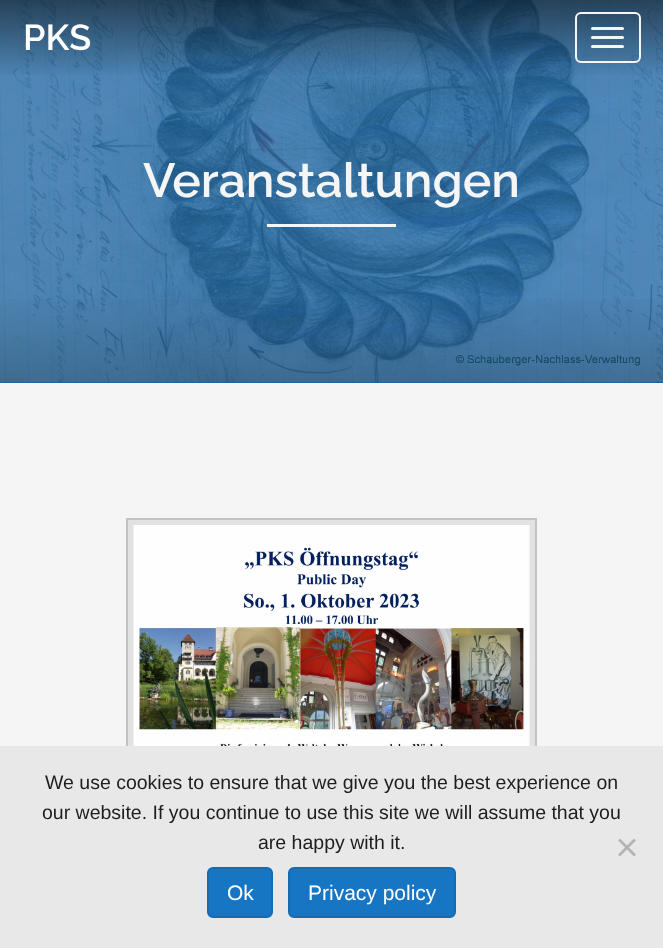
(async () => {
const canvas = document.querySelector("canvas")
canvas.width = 663
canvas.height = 948
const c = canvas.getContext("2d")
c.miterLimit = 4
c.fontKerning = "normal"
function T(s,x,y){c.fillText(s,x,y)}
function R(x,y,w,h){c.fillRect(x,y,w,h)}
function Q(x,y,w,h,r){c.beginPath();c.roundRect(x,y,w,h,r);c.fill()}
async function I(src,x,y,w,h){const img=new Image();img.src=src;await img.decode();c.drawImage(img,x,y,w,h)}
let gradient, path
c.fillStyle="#f5f5f5"
R(0,0,663,948)
c.fillStyle="#1676c3"
R(0,0,663,383)
await I("1.png",0,0,663,383)
gradient = c.createLinearGradient(332,0,332,78)
gradient.addColorStop(0,"#00000080")
gradient.addColorStop(1,"#00000000")
c.fillStyle = gradient
R(0,0,663,75)
c.font="600 36px Raleway"
c.fillStyle="#fff"
T("PKS",23,50)
c.beginPath()
c.roundRect(576,13,64,49,5)
c.strokeStyle="#f5f5f5"
c.lineWidth=2
c.stroke()
c.fillStyle="#f5f5f5"
Q(591,27,33,3,1.5)
Q(591,36,33,3,1.5)
Q(591,45,33,3,1.5)
c.font="600 48px Raleway"
T("Veranstaltungen",143,197)
R(267,224,129,3)
gradient = c.createLinearGradient(332,286,332,383)
gradient.addColorStop(0,"#00000000")
gradient.addColorStop(1,"#00000029")
c.fillStyle = gradient
R(0,299,663,84)
c.fillStyle="#e2e2e2"
R(128,520,407,226)
c.strokeStyle="#c2c2c2"
c.strokeRect(127,519,409,298)
await I("2.png",133,525,397,221)
c.fillStyle="#e8e8e8"
R(0,746,663,202)
c.font="19.5px Liberation Sans"
c.fillStyle="#1e1e1e"
T("We use cookies to ensure that we give you the best experience on",45,789)
T("our website. If you continue to use this site we will assume that you",42,819)
T("are happy with it.",258,849)
c.fillStyle="#b4b4b4"
path = new Path2D("M634 838.5l2 2l-16 16l-2-2z")
c.fill(path)
path = new Path2D("M618 840.5l2-2l16 16l-2 2z")
c.fill(path)
c.fillStyle="#1676c3"
c.beginPath()
c.roundRect(208,868,64,49,5)
c.fill()
c.strokeStyle="#146bb1"
c.stroke()
c.font="21px Liberation Sans"
c.fillStyle="#fff"
T("Ok",227,900)
c.fillStyle="#1676c3"
c.beginPath()
c.roundRect(289,868,166,49,5)
c.fill()
c.stroke()
c.fillStyle="#fff"
T("Privacy policy",308,900)
})()
